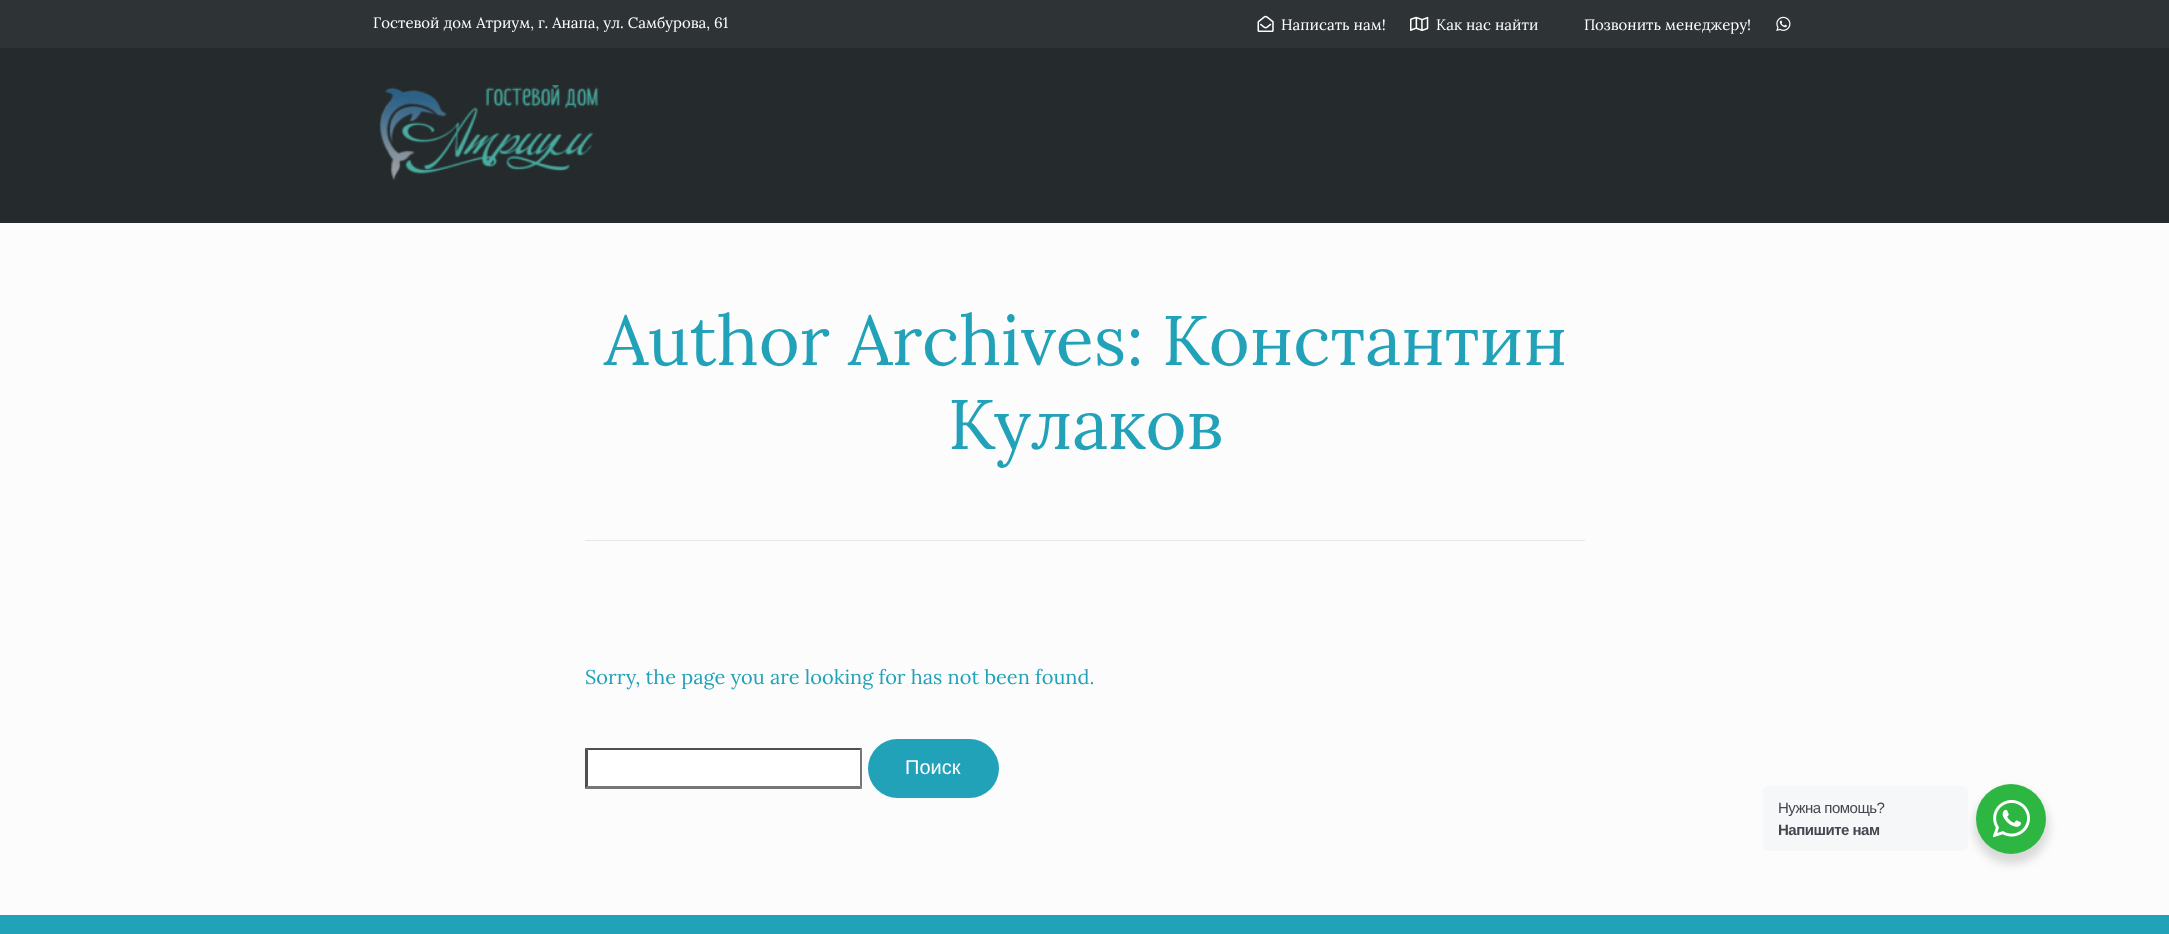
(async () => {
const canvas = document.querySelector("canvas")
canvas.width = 2169
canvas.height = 934
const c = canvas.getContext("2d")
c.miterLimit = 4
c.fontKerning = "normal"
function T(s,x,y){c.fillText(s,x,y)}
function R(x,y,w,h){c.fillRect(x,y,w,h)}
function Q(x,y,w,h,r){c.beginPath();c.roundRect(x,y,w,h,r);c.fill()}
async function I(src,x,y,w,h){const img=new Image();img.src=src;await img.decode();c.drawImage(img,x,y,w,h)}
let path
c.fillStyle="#fcfcfc"
R(0,0,2169,934)
c.fillStyle="#252b2d"
R(0,48,2169,175)
c.fillStyle="#2e3335"
R(0,0,2169,48)
c.font="15px Lora"
c.fillStyle="#fff"
T("Гостевой дом Атриум, г. Анапа, ул. Самбурова, 61",373,28)
await I("1.png",1257,15,17,17)
T("Написать нам!",1281,30)
await I("2.png",1410,16,19,15)
T("Как нас найти",1436,30)
T("Позвонить менеджеру!",1584,30)
await I("3.png",1776,16,15,15)
await I("4.png",379,85,220,95)
c.fillStyle="#e6e6e6"
R(585,540,1000,1)
c.font="70px Lora"
c.fillStyle="#22a2b9"
T("Author Archives: Константин",604,365)
T("Кулаков",948,449)
c.font="20px Lora"
T("Sorry, the page you are looking for has not been found.",585,684)
c.fillStyle="#fff"
R(585,748,278,41)
c.fillStyle="#4f4f4f"
path = new Path2D("M585 748h277l-2 2h-272z")
c.fill(path)
c.fillStyle="#767676"
path = new Path2D("M862 748v41l-2-3v-36z")
c.fill(path)
path = new Path2D("M862 789h-277l3-3h272z")
c.fill(path)
c.fillStyle="#4f4f4f"
path = new Path2D("M585 789v-41l3 2v36z")
c.fill(path)
c.fillStyle="#22a2b9"
Q(868,739,131,59,29.5)
c.font="20px Liberation Sans"
c.fillStyle="#fff"
T("Поиск",905,774)
c.fillStyle="#00000024"
c.filter="blur(5px)"
c.beginPath()
c.roundRect(1974,789,75,75,37.5)
c.fill()
c.filter="none"
c.fillStyle="#f5f7f9"
Q(1763,786,205,65,5)
c.letterSpacing="-0.5px"
c.font="15px Liberation Sans"
c.fillStyle="#43474e"
T("Нужна помощь?",1778,813)
c.font="bold 15px Liberation Sans"
T("Напишите нам",1778,835)
c.fillStyle="#2db742"
c.beginPath()
c.arc(2011,819,35,0,7)
c.fill()
await I("5.png",1993,800,37,38)
c.fillStyle="#22a2b9"
R(0,915,2169,19)
})()
